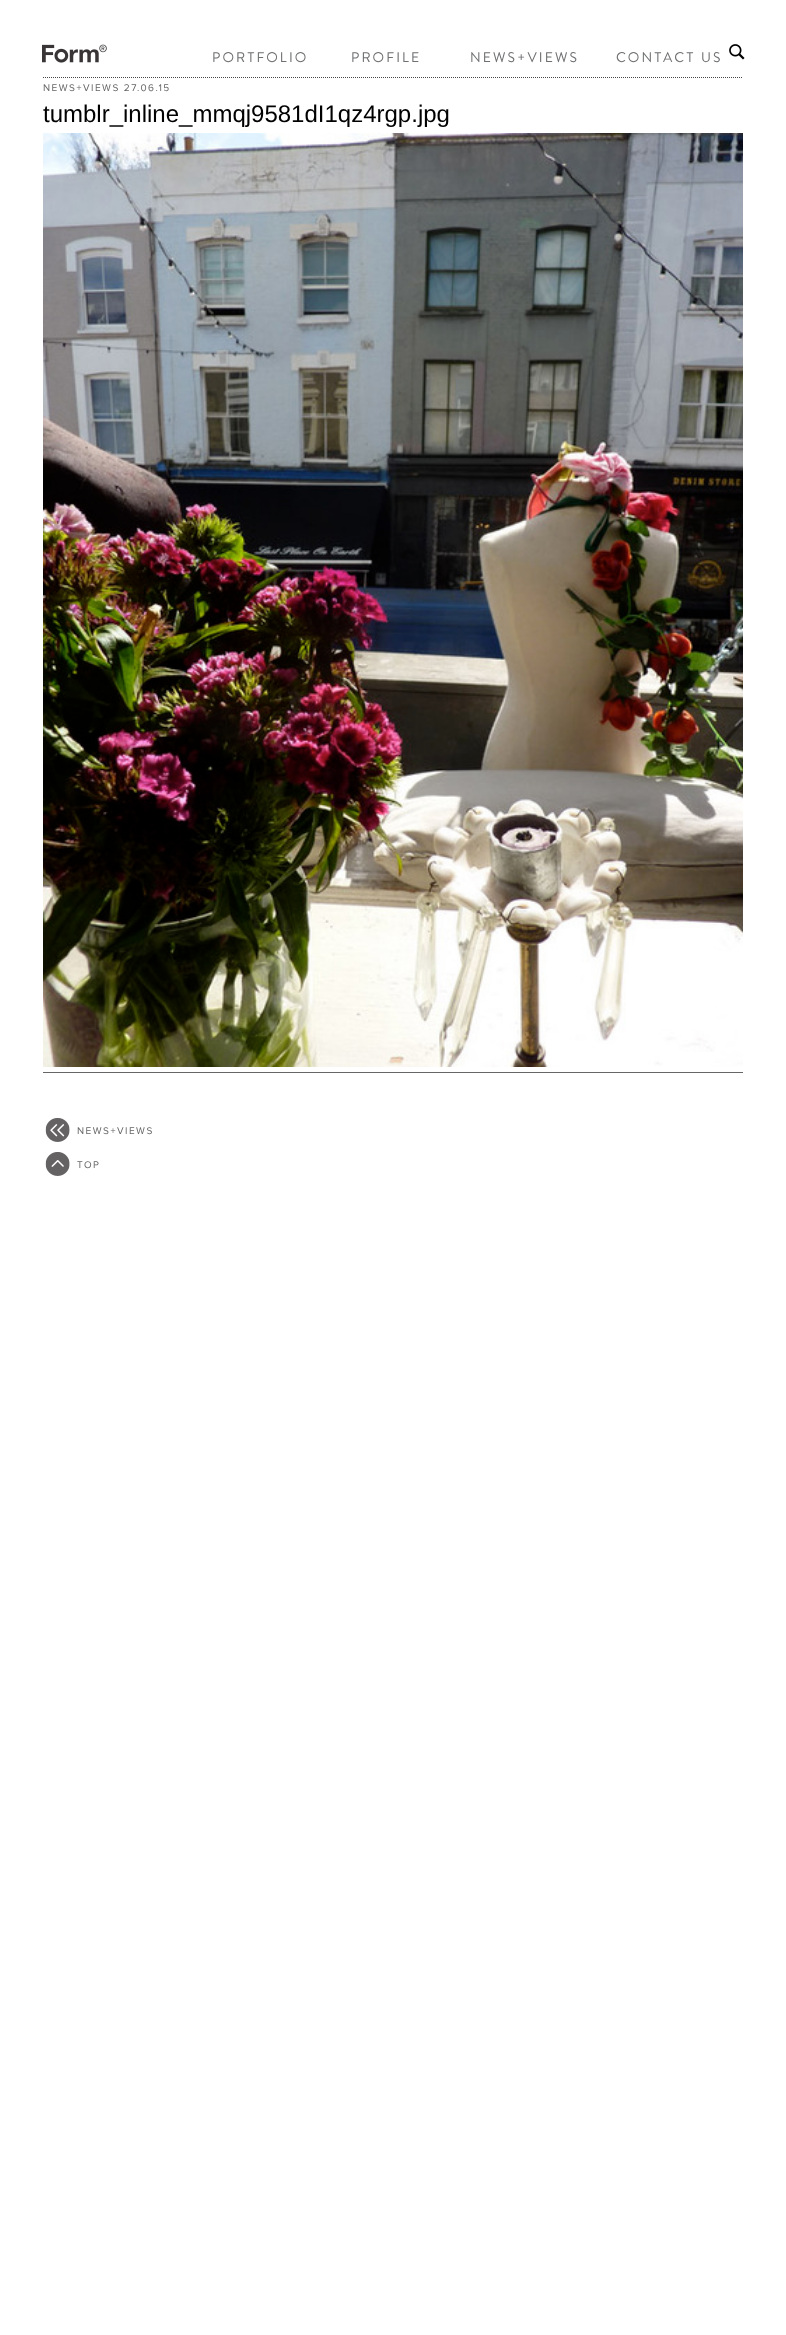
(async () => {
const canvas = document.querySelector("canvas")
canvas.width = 786
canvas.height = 2335
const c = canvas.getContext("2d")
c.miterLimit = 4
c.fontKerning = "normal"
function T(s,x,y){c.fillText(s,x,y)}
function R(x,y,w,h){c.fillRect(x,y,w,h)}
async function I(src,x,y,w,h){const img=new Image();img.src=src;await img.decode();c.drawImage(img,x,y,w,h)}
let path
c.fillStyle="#fff"
R(0,0,786,2335)
await I("1.png",42,44,65,19)
c.letterSpacing="2.1px"
c.font="14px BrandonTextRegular"
c.fillStyle="#6e6f71"
T("PORTFOLIO",212,62)
T("PROFILE",351,62)
T("NEWS+VIEWS",470,62)
T("CONTACT US",616,62)
await I("2.png",729,44,16,16)
path = new Path2D("M43 77.5h700")
c.strokeStyle="#444"
c.setLineDash([1,1])
c.stroke(path)
c.letterSpacing="1.5px"
c.font="10px Proxima Nova"
c.fillStyle="#666"
T("NEWS+VIEWS 27.06.15",43,91)
c.letterSpacing="0px"
c.font="24px Liberation Sans"
c.fillStyle="#000"
T("tumblr_inline_mmqj9581dI1qz4rgp.jpg",43,122)
await I("3.png",43,133,700,934)
c.fillStyle="#666"
R(43,1072,700,1)
await I("4.png",45,1118,25,24)
c.letterSpacing="1.5px"
c.font="10px Proxima Nova"
T("NEWS+VIEWS",77,1134)
await I("5.png",45,1152,25,24)
T("TOP",77,1168)
})()
